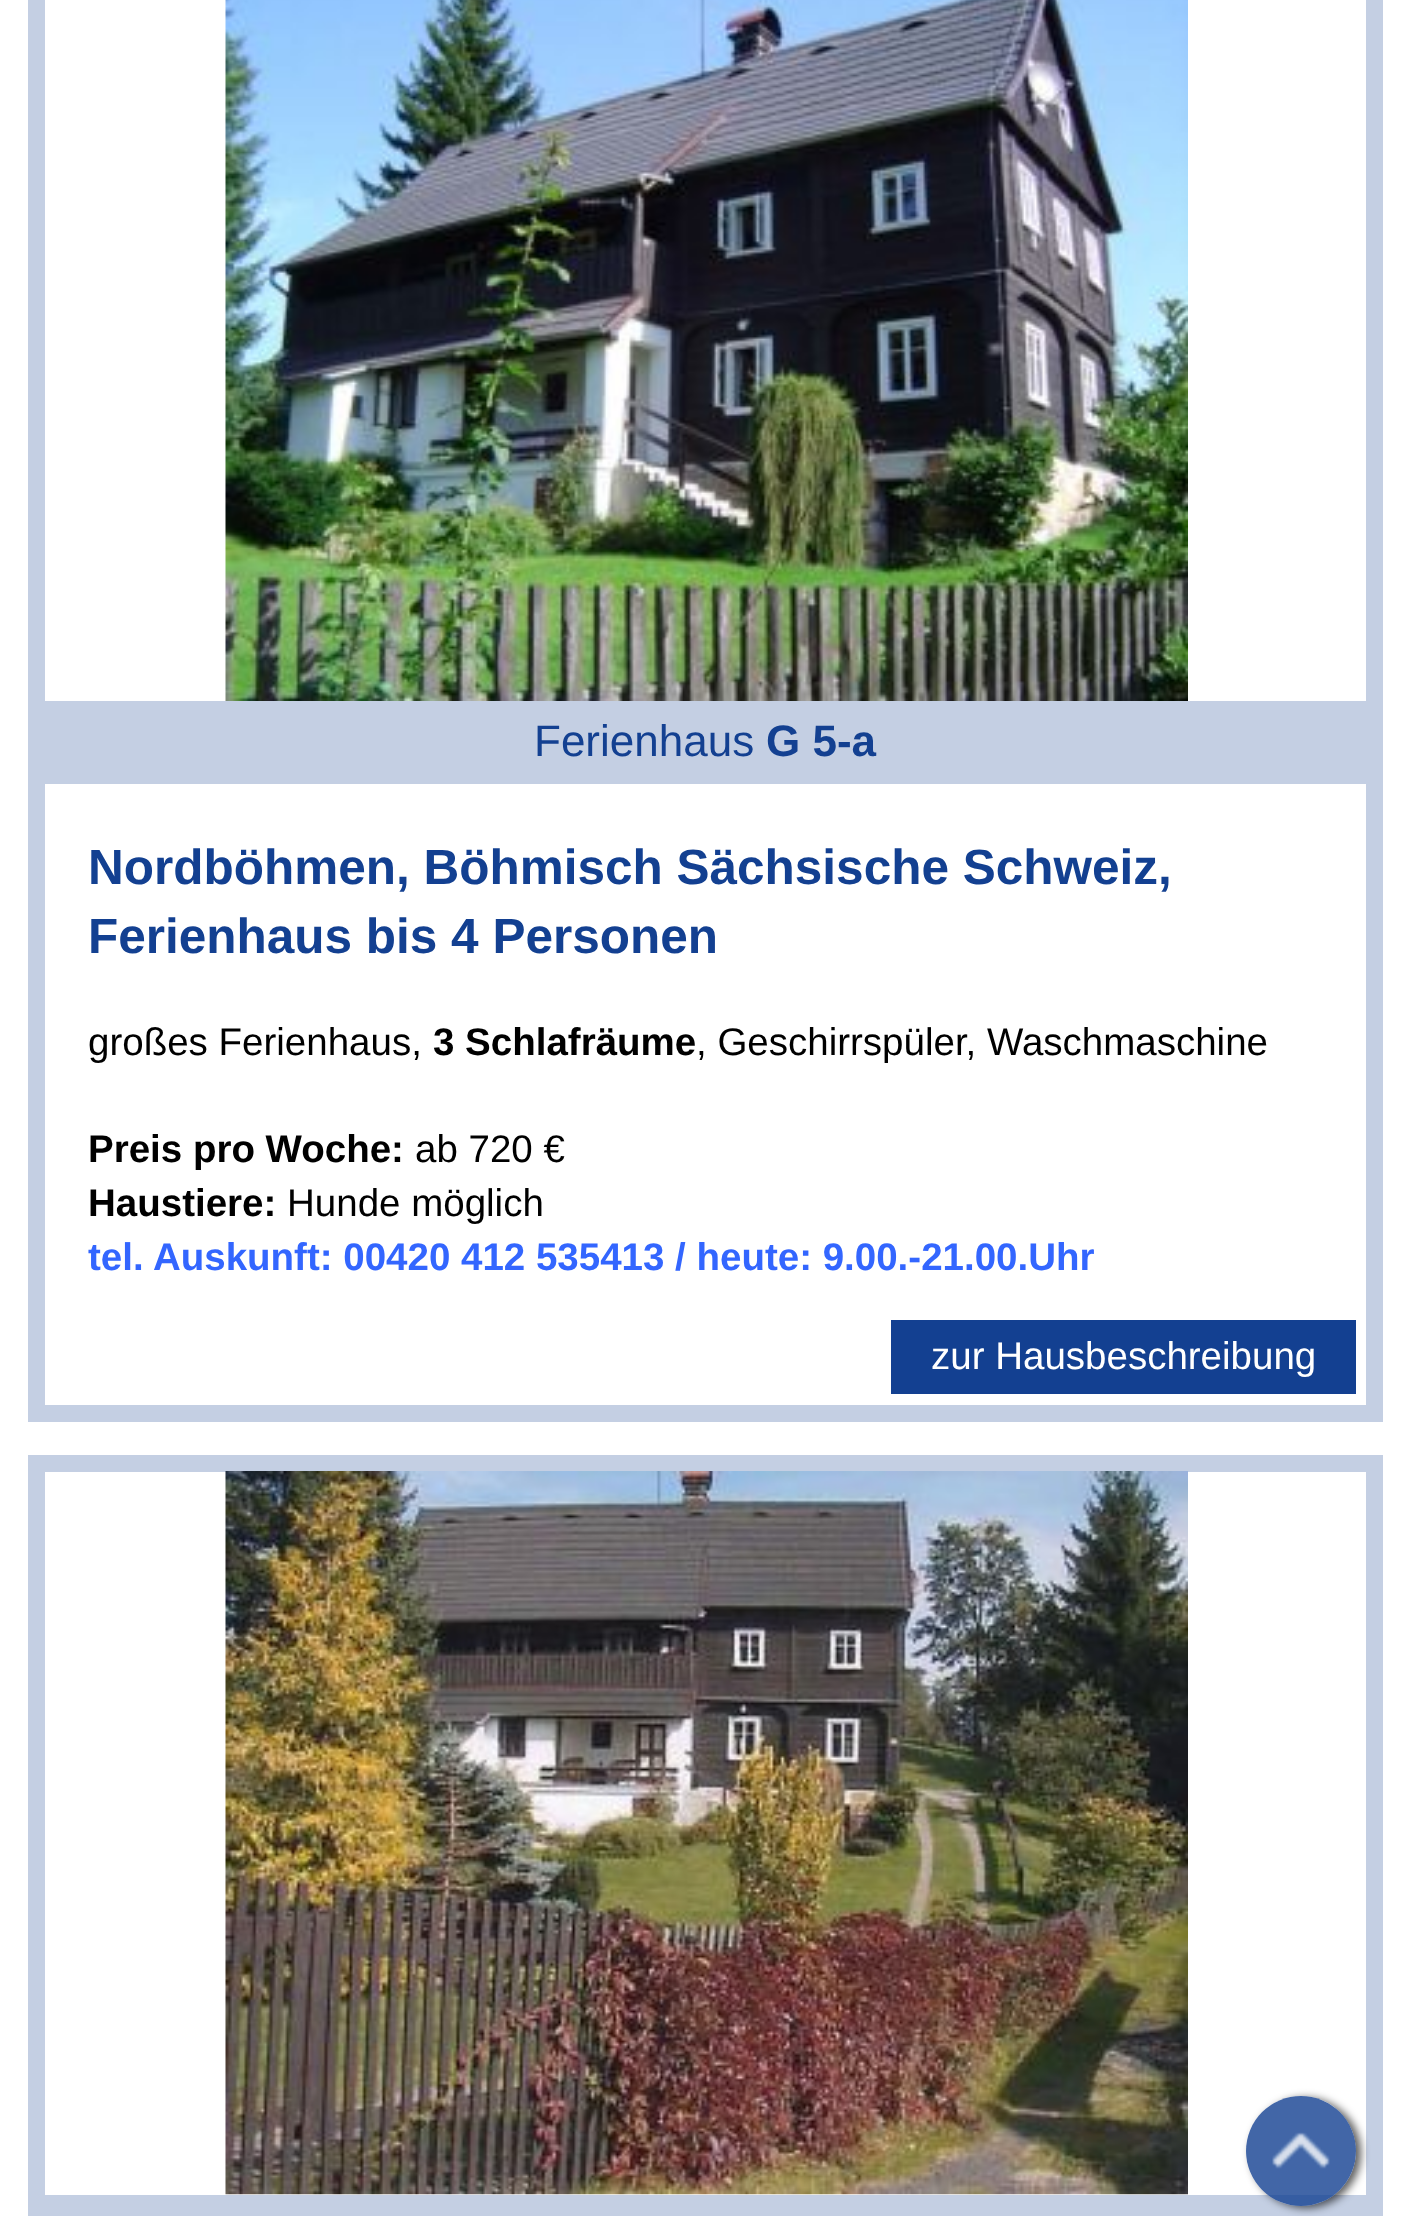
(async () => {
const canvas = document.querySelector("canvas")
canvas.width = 1409
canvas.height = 2216
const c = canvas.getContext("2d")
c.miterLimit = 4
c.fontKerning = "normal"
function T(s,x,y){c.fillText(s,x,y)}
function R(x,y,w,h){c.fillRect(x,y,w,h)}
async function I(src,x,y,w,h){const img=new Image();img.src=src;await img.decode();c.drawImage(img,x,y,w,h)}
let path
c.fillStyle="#fff"
R(0,0,1409,2216)
c.strokeStyle="#c4cfe3"
c.lineWidth=17
c.strokeRect(36.5,-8.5,1338,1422)
await I("1.png",225,0,963,701)
c.fillStyle="#c4cfe3"
R(45,701,1321,83)
c.font="44px Liberation Sans"
c.fillStyle="#134091"
T("Ferienhaus",534,756)
c.font="bold 44px Liberation Sans"
T("G 5-a",766,756)
c.font="bold 49.5px Liberation Sans"
T("Nordböhmen, Böhmisch Sächsische Schweiz,",88,884)
T("Ferienhaus bis 4 Personen",88,953)
c.font="38.5px Liberation Sans"
c.fillStyle="#000"
T("großes Ferienhaus,",88,1055)
c.font="bold 38.5px Liberation Sans"
T("3 Schlafräume",433,1055)
c.font="38.5px Liberation Sans"
T(", Geschirrspüler, Waschmaschine",696,1055)
c.font="bold 38.5px Liberation Sans"
T("Preis pro Woche:",88,1162)
c.font="38.5px Liberation Sans"
T("ab 720 €",415,1162)
c.font="bold 38.5px Liberation Sans"
T("Haustiere:",88,1216)
c.font="38.5px Liberation Sans"
T("Hunde möglich",287,1216)
c.font="bold 38.5px Liberation Sans"
c.fillStyle="#36f"
T("tel. Auskunft: 00420 412 535413 / heute: 9.00.-21.00.Uhr",88,1270)
c.fillStyle="#134091"
R(891,1320,465,74)
c.font="38.5px Liberation Sans"
c.fillStyle="#fff"
T("zur Hausbeschreibung",931,1369)
c.strokeRect(36.5,1463.5,1338,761)
await I("2.png",225,1471,963,724)
c.fillStyle="#c4cfe3"
R(45,2195,1321,21)
c.save()
path = new Path2D("M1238 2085h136v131h-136zm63 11c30.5 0 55 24.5 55 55c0 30.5-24.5 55-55 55c-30.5 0-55-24.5-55-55c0-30.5 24.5-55 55-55z")
c.clip(path,"evenodd")
c.fillStyle="#000000a3"
c.filter="blur(4px)"
c.beginPath()
c.roundRect(1251,2098,110,110,55)
c.fill()
c.filter="none"
c.restore()
c.fillStyle="#134091cc"
c.beginPath()
c.arc(1301,2151,55,0,7)
c.fill()
await I("3.png",1272,2132,58,37)
})()
